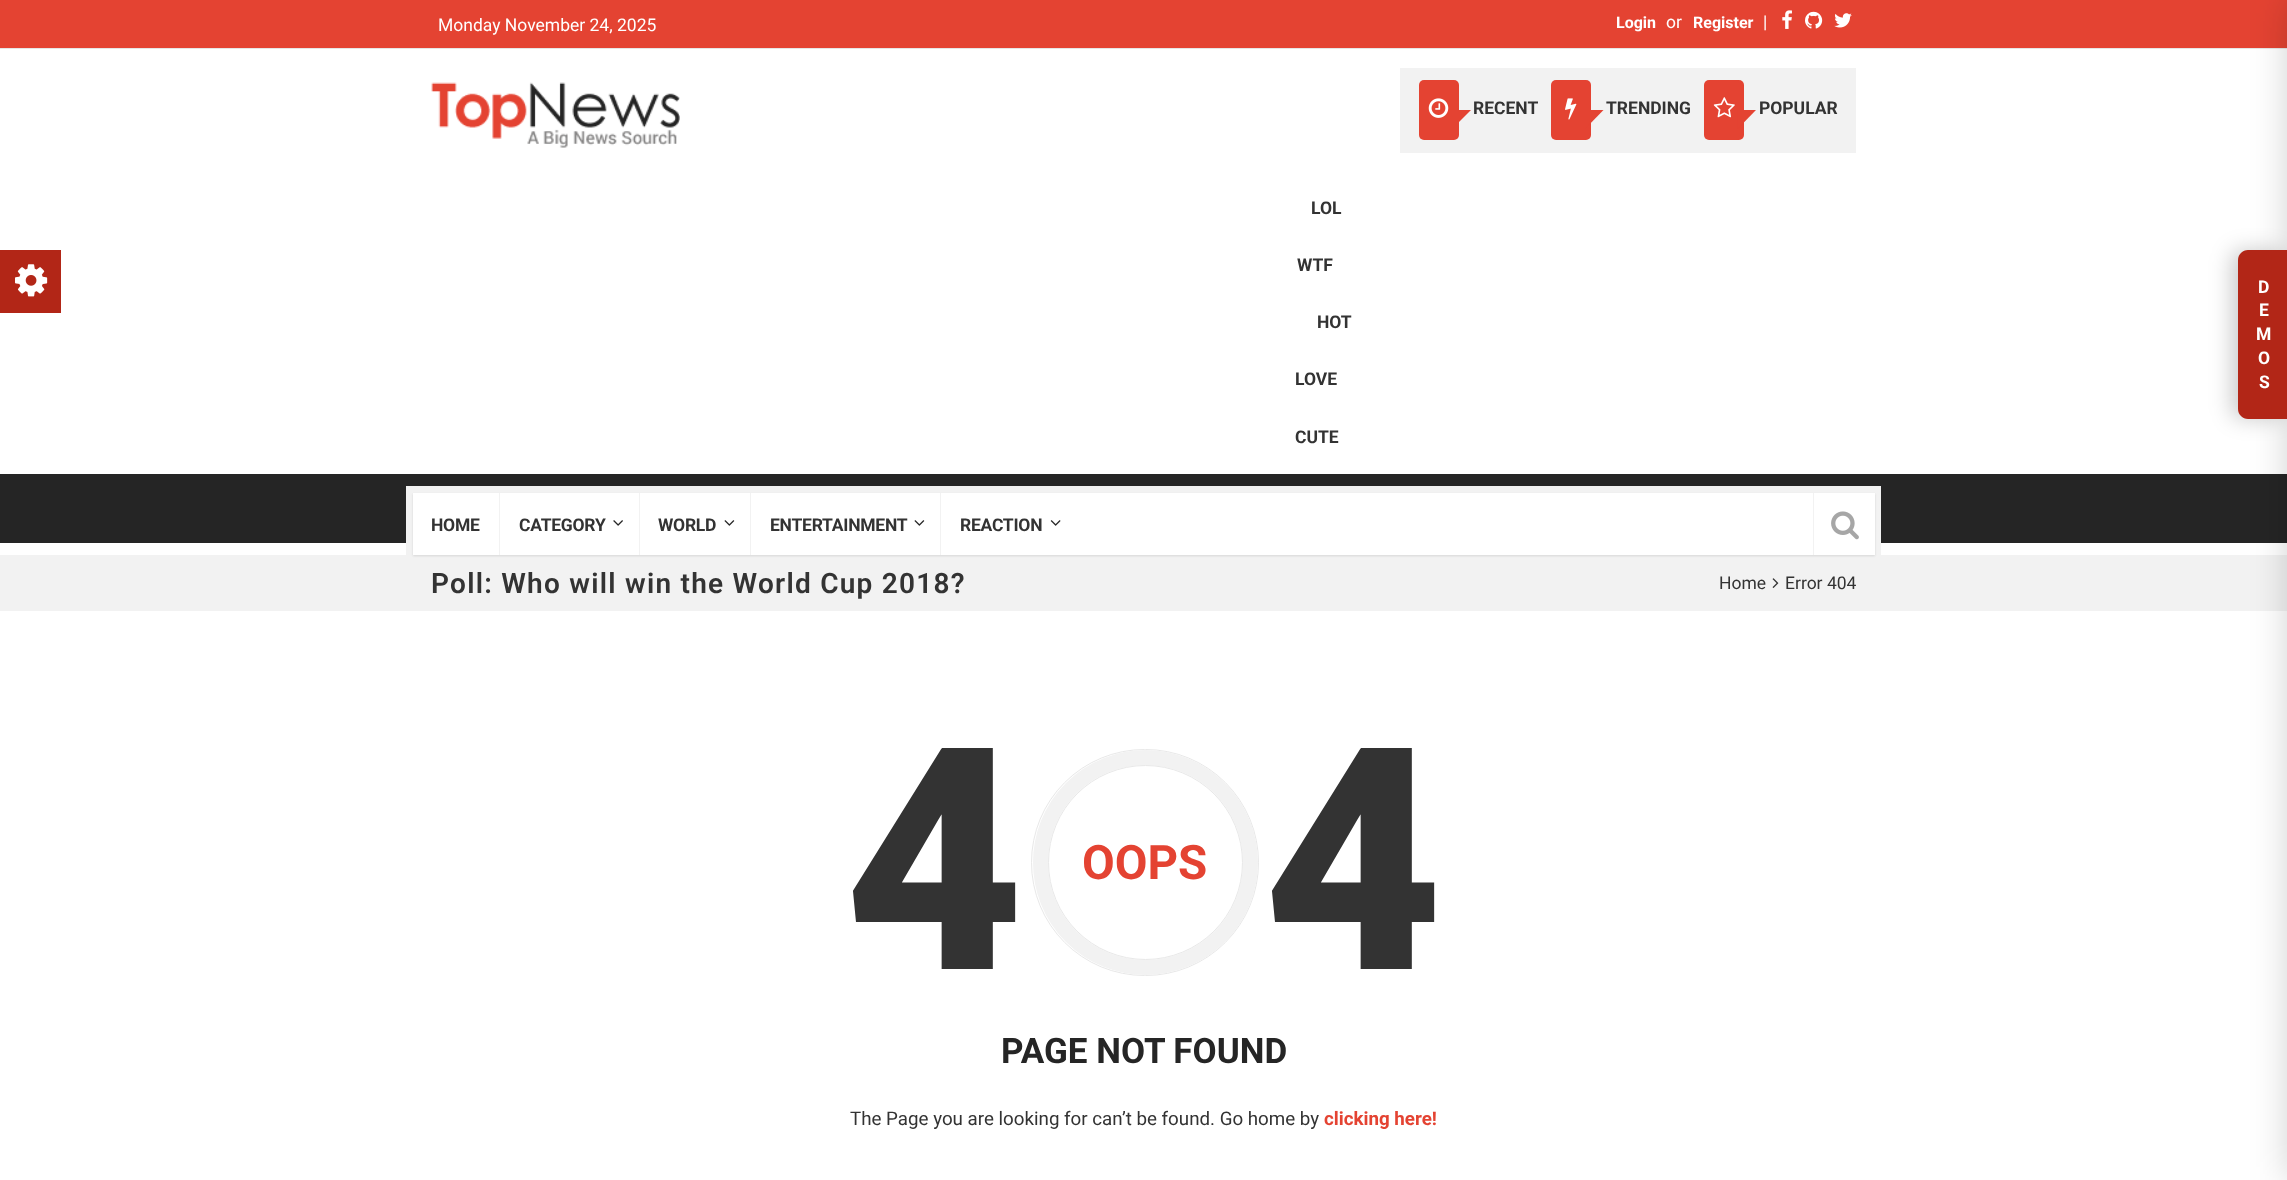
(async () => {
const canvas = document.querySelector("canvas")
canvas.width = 2287
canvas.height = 1180
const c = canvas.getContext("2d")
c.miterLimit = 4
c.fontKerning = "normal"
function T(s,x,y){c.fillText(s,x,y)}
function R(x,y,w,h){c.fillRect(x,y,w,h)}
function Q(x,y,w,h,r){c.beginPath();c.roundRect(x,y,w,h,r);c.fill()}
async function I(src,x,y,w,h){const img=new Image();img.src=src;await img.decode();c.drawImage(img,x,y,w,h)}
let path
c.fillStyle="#fff"
R(0,0,2287,1180)
c.fillStyle="#b22617"
R(0,250,61,63)
await I("1.png",15,264,33,33)
c.fillStyle="#e44332"
R(0,0,2287,48)
c.fillStyle="#e6e6e6"
R(0,48,2287,1)
c.font="17.5px Roboto"
c.fillStyle="#fff"
T("Monday November 24, 2025",438,31)
c.font="bold 16px Roboto"
T("Login",1616,28)
c.font="17.5px Roboto"
T("or",1666,28)
c.font="bold 16px Roboto"
T("Register",1693,28)
c.font="17.5px Roboto"
T("|",1763,28)
await I("2.png",1782,10,10,19)
await I("3.png",1805,11,18,18)
await I("4.png",1834,13,18,15)
await I("5.png",431,82,249,66)
c.fillStyle="#f2f2f2"
R(1400,68,456,85)
c.fillStyle="#e44332"
Q(1419,80,40,60,5)
await I("6.png",1428,98,21,20)
path = new Path2D("M1452 110v19l19-19z")
c.fill(path)
c.font="bold 17.5px Roboto"
c.fillStyle="#333"
T("RECENT",1473,114)
c.fillStyle="#e44332"
Q(1551,80,40,60,5)
await I("7.png",1565,98,12,22)
path = new Path2D("M1585 110v19l18.5-19z")
c.fill(path)
c.fillStyle="#333"
T("TRENDING",1606,114)
c.fillStyle="#e44332"
Q(1704,80,40,60,5)
await I("8.png",1713,97,22,21)
path = new Path2D("M1737.5 110v19l18.5-19z")
c.fill(path)
c.fillStyle="#333"
T("POPULAR",1759,114)
T("LOL",1311,214)
T("WTF",1297,271)
T("HOT",1317,328)
T("LOVE",1295,385)
T("CUTE",1295,443)
c.fillStyle="#252525"
R(0,474,2287,69)
c.fillStyle="#f2f2f2"
R(406,486,1475,69)
R(0,555,2287,56)
c.fillStyle="#6c6c6c33"
c.filter="blur(1px)"
c.beginPath()
c.rect(413,494,1462,62)
c.fill()
c.filter="none"
c.fillStyle="#fff"
R(413,493,1462,62)
c.letterSpacing="-0.25px"
c.fillStyle="#333"
T("HOME",431,531)
c.fillStyle="#f2f2f2"
R(499,493,1,62)
c.fillStyle="#333"
T("CATEGORY",519,531)
await I("9.png",613,520,10,6)
c.fillStyle="#f2f2f2"
R(639,493,1,62)
c.fillStyle="#333"
T("WORLD",658,531)
await I("10.png",724,520,11,6)
c.fillStyle="#f2f2f2"
R(750,493,1,62)
c.fillStyle="#333"
T("ENTERTAINMENT",770,531)
await I("10.png",914,520,11,6)
c.fillStyle="#f2f2f2"
R(940,493,1,62)
c.fillStyle="#333"
T("REACTION",960,531)
await I("11.png",1050,520,11,6)
c.fillStyle="#f2f2f2"
R(1813,493,1,62)
await I("12.png",1831,511,28,29)
c.letterSpacing="1.25px"
c.font="600 28px Roboto"
c.fillStyle="#333"
T("Poll: Who will win the World Cup 2018?",431,593)
c.letterSpacing="0px"
c.font="17.5px Roboto"
T("Home",1719,589)
await I("13.png",1772,578,7,10)
T("Error 404",1785,589)
c.font="900 311px Roboto"
T("4",844,969)
c.beginPath()
c.roundRect(1031.5,749.5,227,226,113)
c.strokeStyle="#e8e8e8"
c.stroke()
c.beginPath()
c.arc(1145.5,862.5,105,0,7)
c.strokeStyle="#f2f2f2"
c.lineWidth=15
c.stroke()
c.beginPath()
c.arc(1145.5,862.5,97,0,7)
c.strokeStyle="#e8e8e8"
c.lineWidth=1
c.stroke()
c.font="bold 47.5px Roboto"
c.fillStyle="#e44332"
T("OOPS",1082,879)
c.font="900 311px Roboto"
c.fillStyle="#333"
T("4",1263,969)
c.font="bold 35px Roboto"
c.fillStyle="#252525"
T("PAGE NOT FOUND",1001,1063)
c.font="18.75px Roboto"
c.fillStyle="#333"
T("The Page you are looking for can’t be found. Go home by",850,1125)
c.font="bold 18.75px Roboto"
c.fillStyle="#e44332"
T("clicking here!",1324,1125)
c.fillStyle="#00000033"
c.filter="blur(19px)"
c.beginPath()
c.rect(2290,0,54,1180)
c.fill()
c.filter="none"
c.filter="blur(10.5px)"
c.beginPath()
c.roundRect(2231,250,53,169,10)
c.fill()
c.filter="none"
c.fillStyle="#b22617"
path = new Path2D("M2248 250h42v169h-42c-5.5 0-10-4.5-10-10v-149c0-5.5 4.5-10 10-10z")
c.fill(path)
c.font="bold 17.5px Roboto"
c.fillStyle="#fff"
T("D",2258,293)
T("E",2259,316)
T("M",2256,340)
T("O",2258,364)
T("S",2259,388)
})()
